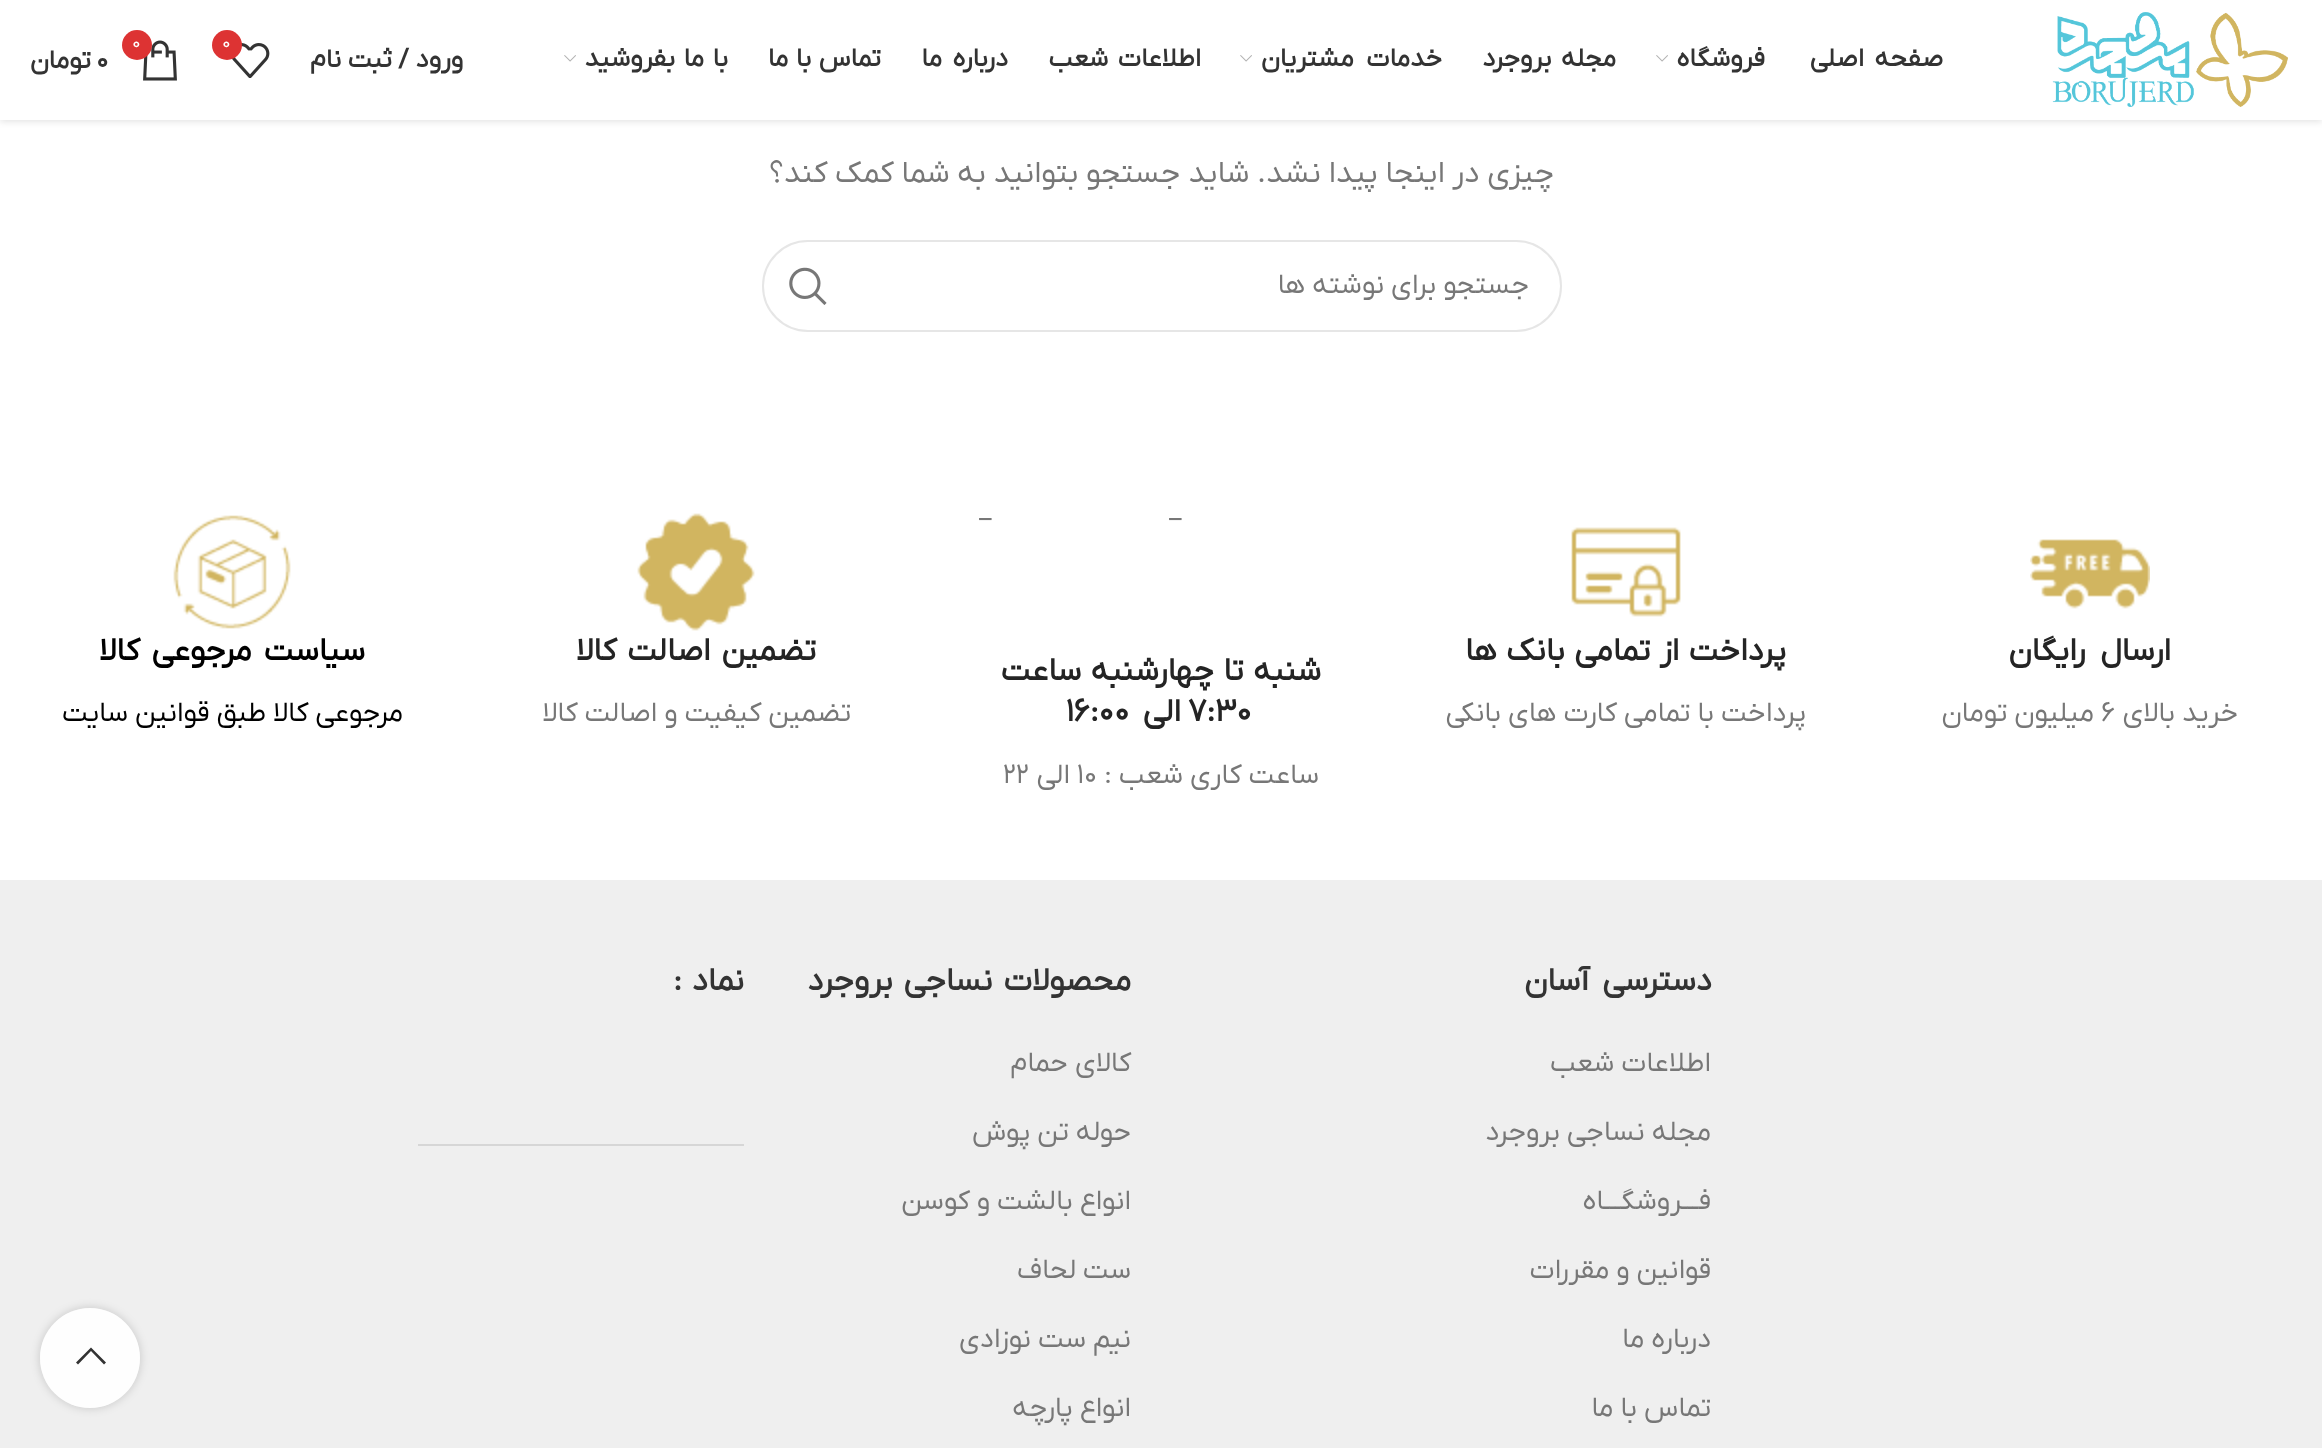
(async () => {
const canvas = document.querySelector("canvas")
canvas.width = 2322
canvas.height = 1448
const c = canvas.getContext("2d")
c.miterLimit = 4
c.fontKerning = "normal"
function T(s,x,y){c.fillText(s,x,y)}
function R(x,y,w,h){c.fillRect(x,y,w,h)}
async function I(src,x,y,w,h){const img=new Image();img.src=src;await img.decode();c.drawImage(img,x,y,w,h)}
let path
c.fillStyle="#fff"
R(0,0,2322,1448)
c.fillStyle="#0000001a"
c.filter="blur(3px)"
c.beginPath()
c.rect(0,2,2322,120)
c.fill()
c.filter="none"
c.fillStyle="#fff"
R(0,0,2322,120)
await I("1.png",2052,12,236,95)
c.wordSpacing="4px"
c.direction="rtl"
c.font="bold 26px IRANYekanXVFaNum"
c.fillStyle="#333"
T("صفحه اصلی",1943,66)
c.wordSpacing="0px"
T("فروشگاه",1765,66)
await I("2.png",1656,55,12,7)
c.wordSpacing="3px"
T("مجله بروجرد",1616,66)
c.wordSpacing="6px"
T("خدمات مشتریان",1442,66)
await I("2.png",1240,55,12,7)
c.wordSpacing="3px"
T("اطلاعات شعب",1201,66)
c.wordSpacing="4px"
T("درباره ما",1008,66)
c.wordSpacing="1px"
T("تماس با ما",881,66)
c.wordSpacing="2px"
T("با ما بفروشید",728,66)
await I("2.png",564,55,12,7)
await I("3.png",232,43,38,35)
c.fillStyle="#d33"
c.beginPath()
c.arc(227,45,15,0,7)
c.fill()
c.wordSpacing="0px"
c.direction="ltr"
c.font="18px IRANYekanXVFaNum"
c.fillStyle="#fff"
T("0",222,48)
await I("4.png",143,40,34,41)
c.fillStyle="#d33"
c.beginPath()
c.arc(137,45,15,0,7)
c.fill()
c.fillStyle="#fff"
T("0",132,48)
c.font="bold 26px IRANYekanXVFaNum"
c.fillStyle="#333"
T("۰",96,68)
c.direction="rtl"
T("تومان",91,68)
T("ورود / ثبت نام",463,67)
c.font="30.8px IRANYekanXVFaNum"
c.fillStyle="#777"
T("چیزی در اینجا پیدا نشد. شاید جستجو بتوانید به شما کمک کند؟",1554,182)
c.beginPath()
c.roundRect(763,241,798,90,45)
c.strokeStyle="#e6e6e6"
c.lineWidth=2
c.stroke()
c.font="28px IRANYekanXVFaNum"
T("جستجو برای نوشته ها",1529,293)
await I("5.png",789,267,38,38)
await I("6.png",2030,539,120,70)
c.wordSpacing="7px"
c.font="bold 32px IRANYekanXVFaNum"
c.fillStyle="#242424"
T("ارسال رایگان",2171,660)
c.wordSpacing="0px"
c.font="28px IRANYekanXVFaNum"
c.fillStyle="#777"
T("خرید بالای",2238,721)
c.direction="ltr"
T("6",2101,721)
c.direction="rtl"
T("میلیون تومان",2094,721)
await I("7.png",1571,527,110,90)
c.wordSpacing="1.5px"
c.font="bold 32px IRANYekanXVFaNum"
c.fillStyle="#242424"
T("پرداخت از تمامی بانک ها",1786,660)
c.wordSpacing="0px"
c.font="28px IRANYekanXVFaNum"
c.fillStyle="#777"
T("پرداخت با تمامی کارت های بانکی",1806,721)
c.direction="ltr"
T("_",1169,518)
T("_",979,518)
c.wordSpacing="1.5px"
c.direction="rtl"
c.font="bold 32px IRANYekanXVFaNum"
c.fillStyle="#242424"
T("شنبه تا چهارشنبه ساعت",1321,680)
c.wordSpacing="0px"
c.direction="ltr"
T("7:30",1188,721)
c.direction="rtl"
T("الی",1181,721)
c.direction="ltr"
T("16:00",1066,721)
c.direction="rtl"
c.font="28px IRANYekanXVFaNum"
c.fillStyle="#777"
T("ساعت کاری شعب :",1319,783)
c.direction="ltr"
T("10",1077,783)
c.direction="rtl"
T("الی",1070,783)
c.direction="ltr"
T("22",1003,783)
await I("8.png",637,513,118,118)
c.wordSpacing="3px"
c.direction="rtl"
c.font="bold 32px IRANYekanXVFaNum"
c.fillStyle="#242424"
T("تضمین اصالت کالا",816,660)
c.wordSpacing="0px"
c.font="28px IRANYekanXVFaNum"
c.fillStyle="#777"
T("تضمین کیفیت و اصالت کالا",851,721)
await I("9.png",173,515,118,114)
c.wordSpacing="4px"
c.font="bold 32px IRANYekanXVFaNum"
c.fillStyle="#000"
T("سیاست مرجوعی کالا",365,660)
c.wordSpacing="0px"
c.font="28px IRANYekanXVFaNum"
T("مرجوعی کالا طبق قوانین سایت",403,721)
c.fillStyle="#efefef"
R(0,880,2322,568)
c.wordSpacing="5px"
c.font="bold 32px IRANYekanXVFaNum"
c.fillStyle="#333"
T("دسترسی آسان",1712,990)
c.wordSpacing="0px"
c.font="28px IRANYekanXVFaNum"
c.fillStyle="#777"
T("اطلاعات شعب",1711,1071)
T("مجله نساجی بروجرد",1711,1140)
T("فـــروشگـــاه",1711,1209)
T("قوانین و مقررات",1711,1278)
T("درباره ما",1711,1347)
T("تماس با ما",1711,1416)
c.wordSpacing="3px"
c.font="bold 32px IRANYekanXVFaNum"
c.fillStyle="#333"
T("محصولات نساجی بروجرد",1131,990)
c.wordSpacing="0px"
c.font="28px IRANYekanXVFaNum"
c.fillStyle="#777"
T("کالای حمام",1131,1071)
T("حوله تن پوش",1131,1140)
T("انواع بالشت و کوسن",1131,1209)
T("ست لحاف",1131,1278)
T("نیم ست نوزادی",1131,1347)
T("انواع پارچه",1131,1416)
c.fillStyle="#d6d6d6"
R(418,1144,326,2)
c.wordSpacing="2px"
c.font="bold 32px IRANYekanXVFaNum"
c.fillStyle="#333"
T("نماد :",744,990)
c.save()
path = new Path2D("M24 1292h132v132h-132zm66 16c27.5 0 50 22.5 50 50c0 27.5-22.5 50-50 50c-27.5 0-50-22.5-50-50c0-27.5 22.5-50 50-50z")
c.clip(path,"evenodd")
c.fillStyle="#0000002b"
c.filter="blur(5px)"
c.beginPath()
c.roundRect(40,1308,100,100,50)
c.fill()
c.filter="none"
c.restore()
c.fillStyle="#ffffffe6"
c.beginPath()
c.arc(90,1358,50,0,7)
c.fill()
c.fillStyle="#333"
path = new Path2D("M104 1364.5l2-2l-15-15l-15 15l2 2l13-13.5z")
c.fill(path)
})()
